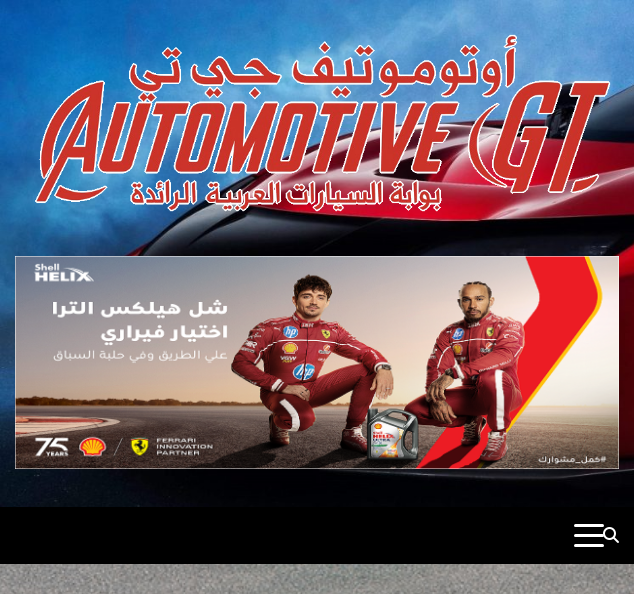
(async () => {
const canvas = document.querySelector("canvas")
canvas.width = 634
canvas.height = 607
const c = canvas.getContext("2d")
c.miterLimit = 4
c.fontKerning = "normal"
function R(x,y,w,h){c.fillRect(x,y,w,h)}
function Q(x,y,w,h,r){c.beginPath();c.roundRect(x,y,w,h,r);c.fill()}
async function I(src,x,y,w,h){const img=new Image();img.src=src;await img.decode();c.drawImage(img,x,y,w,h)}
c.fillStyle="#fff"
R(0,0,634,607)
await I("1.png",0,564,634,30)
await I("2.png",0,0,634,507)
await I("3.png",35,34,576,178)
await I("4.png",15,256,604,213)
c.fillStyle="#000"
R(0,507,634,57)
c.fillStyle="#fff"
Q(574,524,30,3,1.5)
Q(574,534,30,3,1.5)
Q(574,544,30,3,1.5)
await I("5.png",603,527,16,16)
})()
